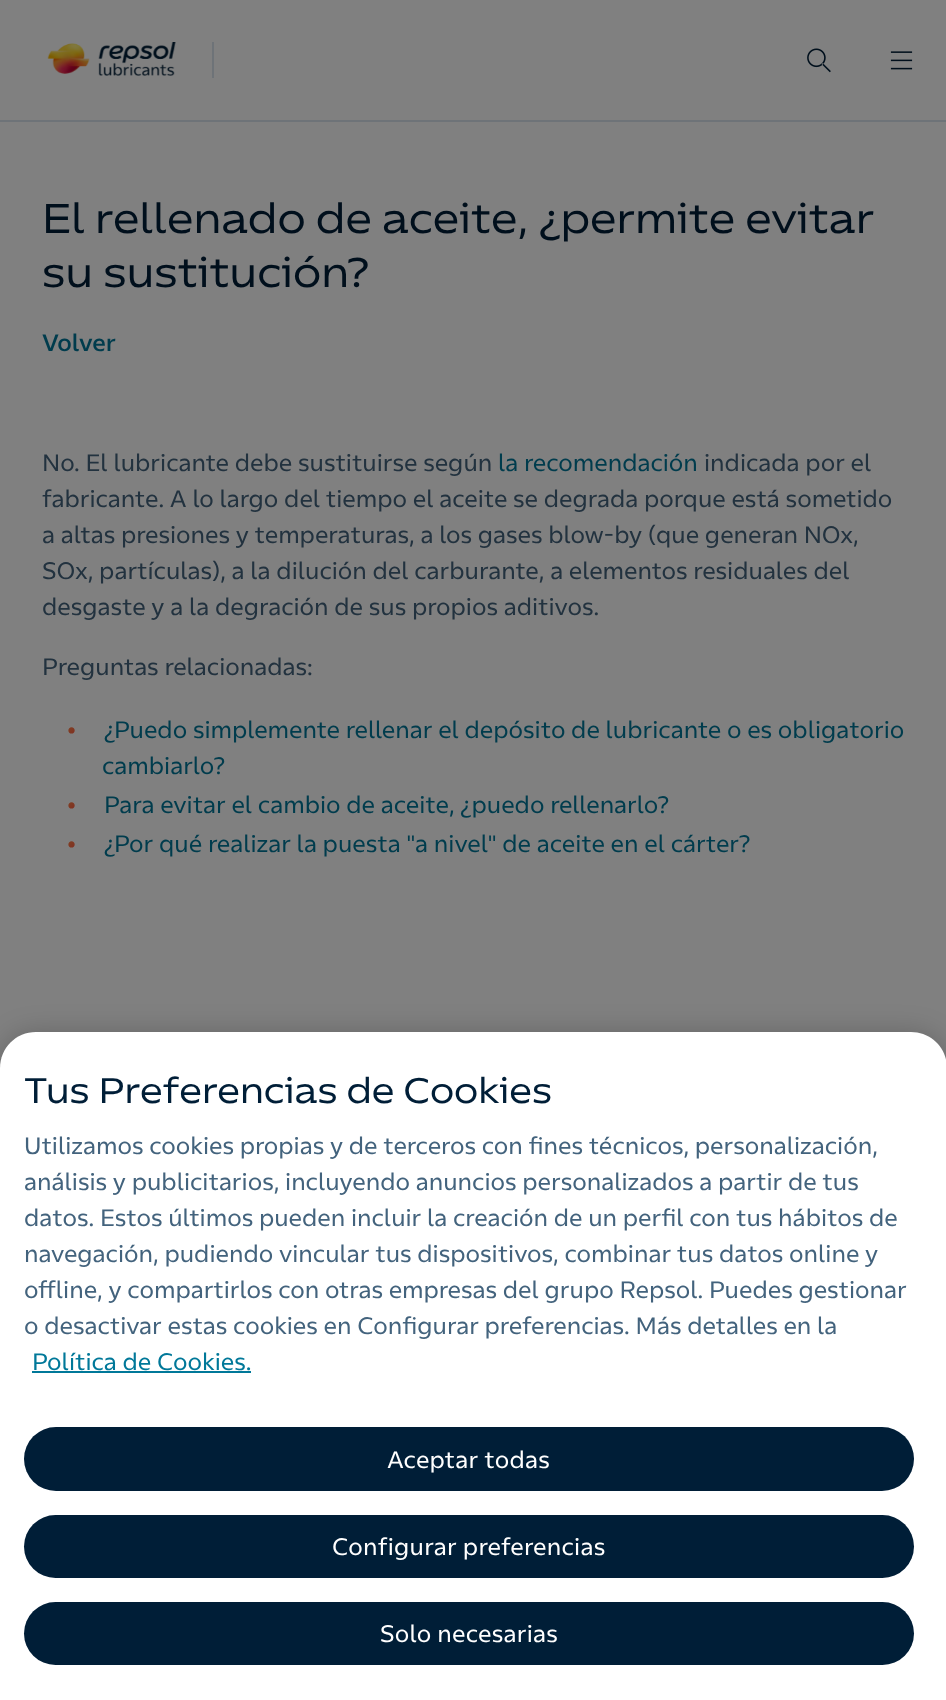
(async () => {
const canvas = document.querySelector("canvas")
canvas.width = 946
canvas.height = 1700
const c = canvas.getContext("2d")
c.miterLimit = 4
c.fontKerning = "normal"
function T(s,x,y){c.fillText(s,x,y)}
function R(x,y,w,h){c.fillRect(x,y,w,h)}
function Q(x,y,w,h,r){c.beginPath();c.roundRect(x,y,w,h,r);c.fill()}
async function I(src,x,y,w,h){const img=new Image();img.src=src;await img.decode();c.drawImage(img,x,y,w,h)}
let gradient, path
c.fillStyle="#808080"
R(0,0,946,1700)
c.fillStyle="#6e7378"
R(0,120,946,2)
await I("1.png",47,42,129,34)
R(212,42,2,36)
await I("2.png",807,48,24,25)
await I("3.png",890,51,23,19)
c.font="42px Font"
c.fillStyle="#000f1c"
T("El rellenado de aceite, ¿permite evitar",42,233)
T("su sustitución?",42,287)
c.font="600 24px Font"
c.fillStyle="#003c4d"
T("Volver",42,351)
c.font="24px 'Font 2'"
c.fillStyle="#22323f"
T("No. El lubricante debe sustituirse según",42,471)
c.fillStyle="#003c4d"
T("la recomendación",498,471)
c.fillStyle="#22323f"
T("indicada por el",704,471)
T("fabricante. A lo largo del tiempo el aceite se degrada porque está sometido",42,507)
T("a altas presiones y temperaturas, a los gases blow-by (que generan NOx,",42,543)
T("SOx, partículas), a la dilución del carburante, a elementos residuales del",42,579)
T("desgaste y a la degración de sus propios aditivos.",42,615)
T("Preguntas relacionadas:",42,675)
c.font="36px 'Font 2'"
gradient = c.createLinearGradient(65,709,102,750)
gradient.addColorStop(0,"#804e00")
gradient.addColorStop(.29,"#803f23")
gradient.addColorStop(.67,"#801c20")
gradient.addColorStop(1,"#601018")
c.fillStyle = gradient
T("•",66,743)
c.font="24px 'Font 2'"
c.fillStyle="#003c4d"
T("¿Puedo simplemente rellenar el depósito de lubricante o es obligatorio",104,738)
T("cambiarlo?",102,774)
c.font="36px 'Font 2'"
gradient = c.createLinearGradient(65,784,102,825)
gradient.addColorStop(0,"#804e00")
gradient.addColorStop(.29,"#803f23")
gradient.addColorStop(.67,"#801c20")
gradient.addColorStop(1,"#601018")
c.fillStyle = gradient
T("•",66,818)
c.font="24px 'Font 2'"
c.fillStyle="#003c4d"
T("Para evitar el cambio de aceite, ¿puedo rellenarlo?",104,813)
c.font="36px 'Font 2'"
gradient = c.createLinearGradient(65,823,102,864)
gradient.addColorStop(0,"#804e00")
gradient.addColorStop(.29,"#803f23")
gradient.addColorStop(.67,"#801c20")
gradient.addColorStop(1,"#601018")
c.fillStyle = gradient
T("•",66,857)
c.font="24px 'Font 2'"
c.fillStyle="#003c4d"
T("¿Por qué realizar la puesta \"a nivel\" de aceite en el cárter?",104,852)
c.fillStyle="#00000033"
c.filter="blur(13.5px)"
c.beginPath()
c.roundRect(0,1032,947,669,36)
c.fill()
c.filter="none"
c.fillStyle="#fff"
path = new Path2D("M36 1032h875c20 0 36 16 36 36v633h-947v-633c0-20 16-36 36-36z")
c.fill(path)
c.font="36px Font"
c.fillStyle="#001e37"
T("Tus Preferencias de Cookies",24,1103)
c.font="24px 'Font 2'"
c.fillStyle="#43637d"
T("Utilizamos cookies propias y de terceros con fines técnicos, personalización,",24,1154)
T("análisis y publicitarios, incluyendo anuncios personalizados a partir de tus",24,1190)
T("datos. Estos últimos pueden incluir la creación de un perfil con tus hábitos de",24,1226)
T("navegación, pudiendo vincular tus dispositivos, combinar tus datos online y",24,1262)
T("offline, y compartirlos con otras empresas del grupo Repsol. Puedes gestionar",24,1298)
T("o desactivar estas cookies en Configurar preferencias. Más detalles en la",24,1334)
c.fillStyle="#007899"
T("Política de Cookies.",32,1370)
R(32,1371,219,2)
c.fillStyle="#001e37"
Q(24,1427,890,64,32)
c.letterSpacing="0.25px"
c.fillStyle="#fff"
T("Aceptar todas",387,1468)
c.fillStyle="#001e37"
Q(24,1515,890,63,31.5)
c.fillStyle="#fff"
T("Configurar preferencias",332,1555)
c.fillStyle="#001e37"
Q(24,1602,890,63,31.5)
c.fillStyle="#fff"
T("Solo necesarias",380,1642)
})()
